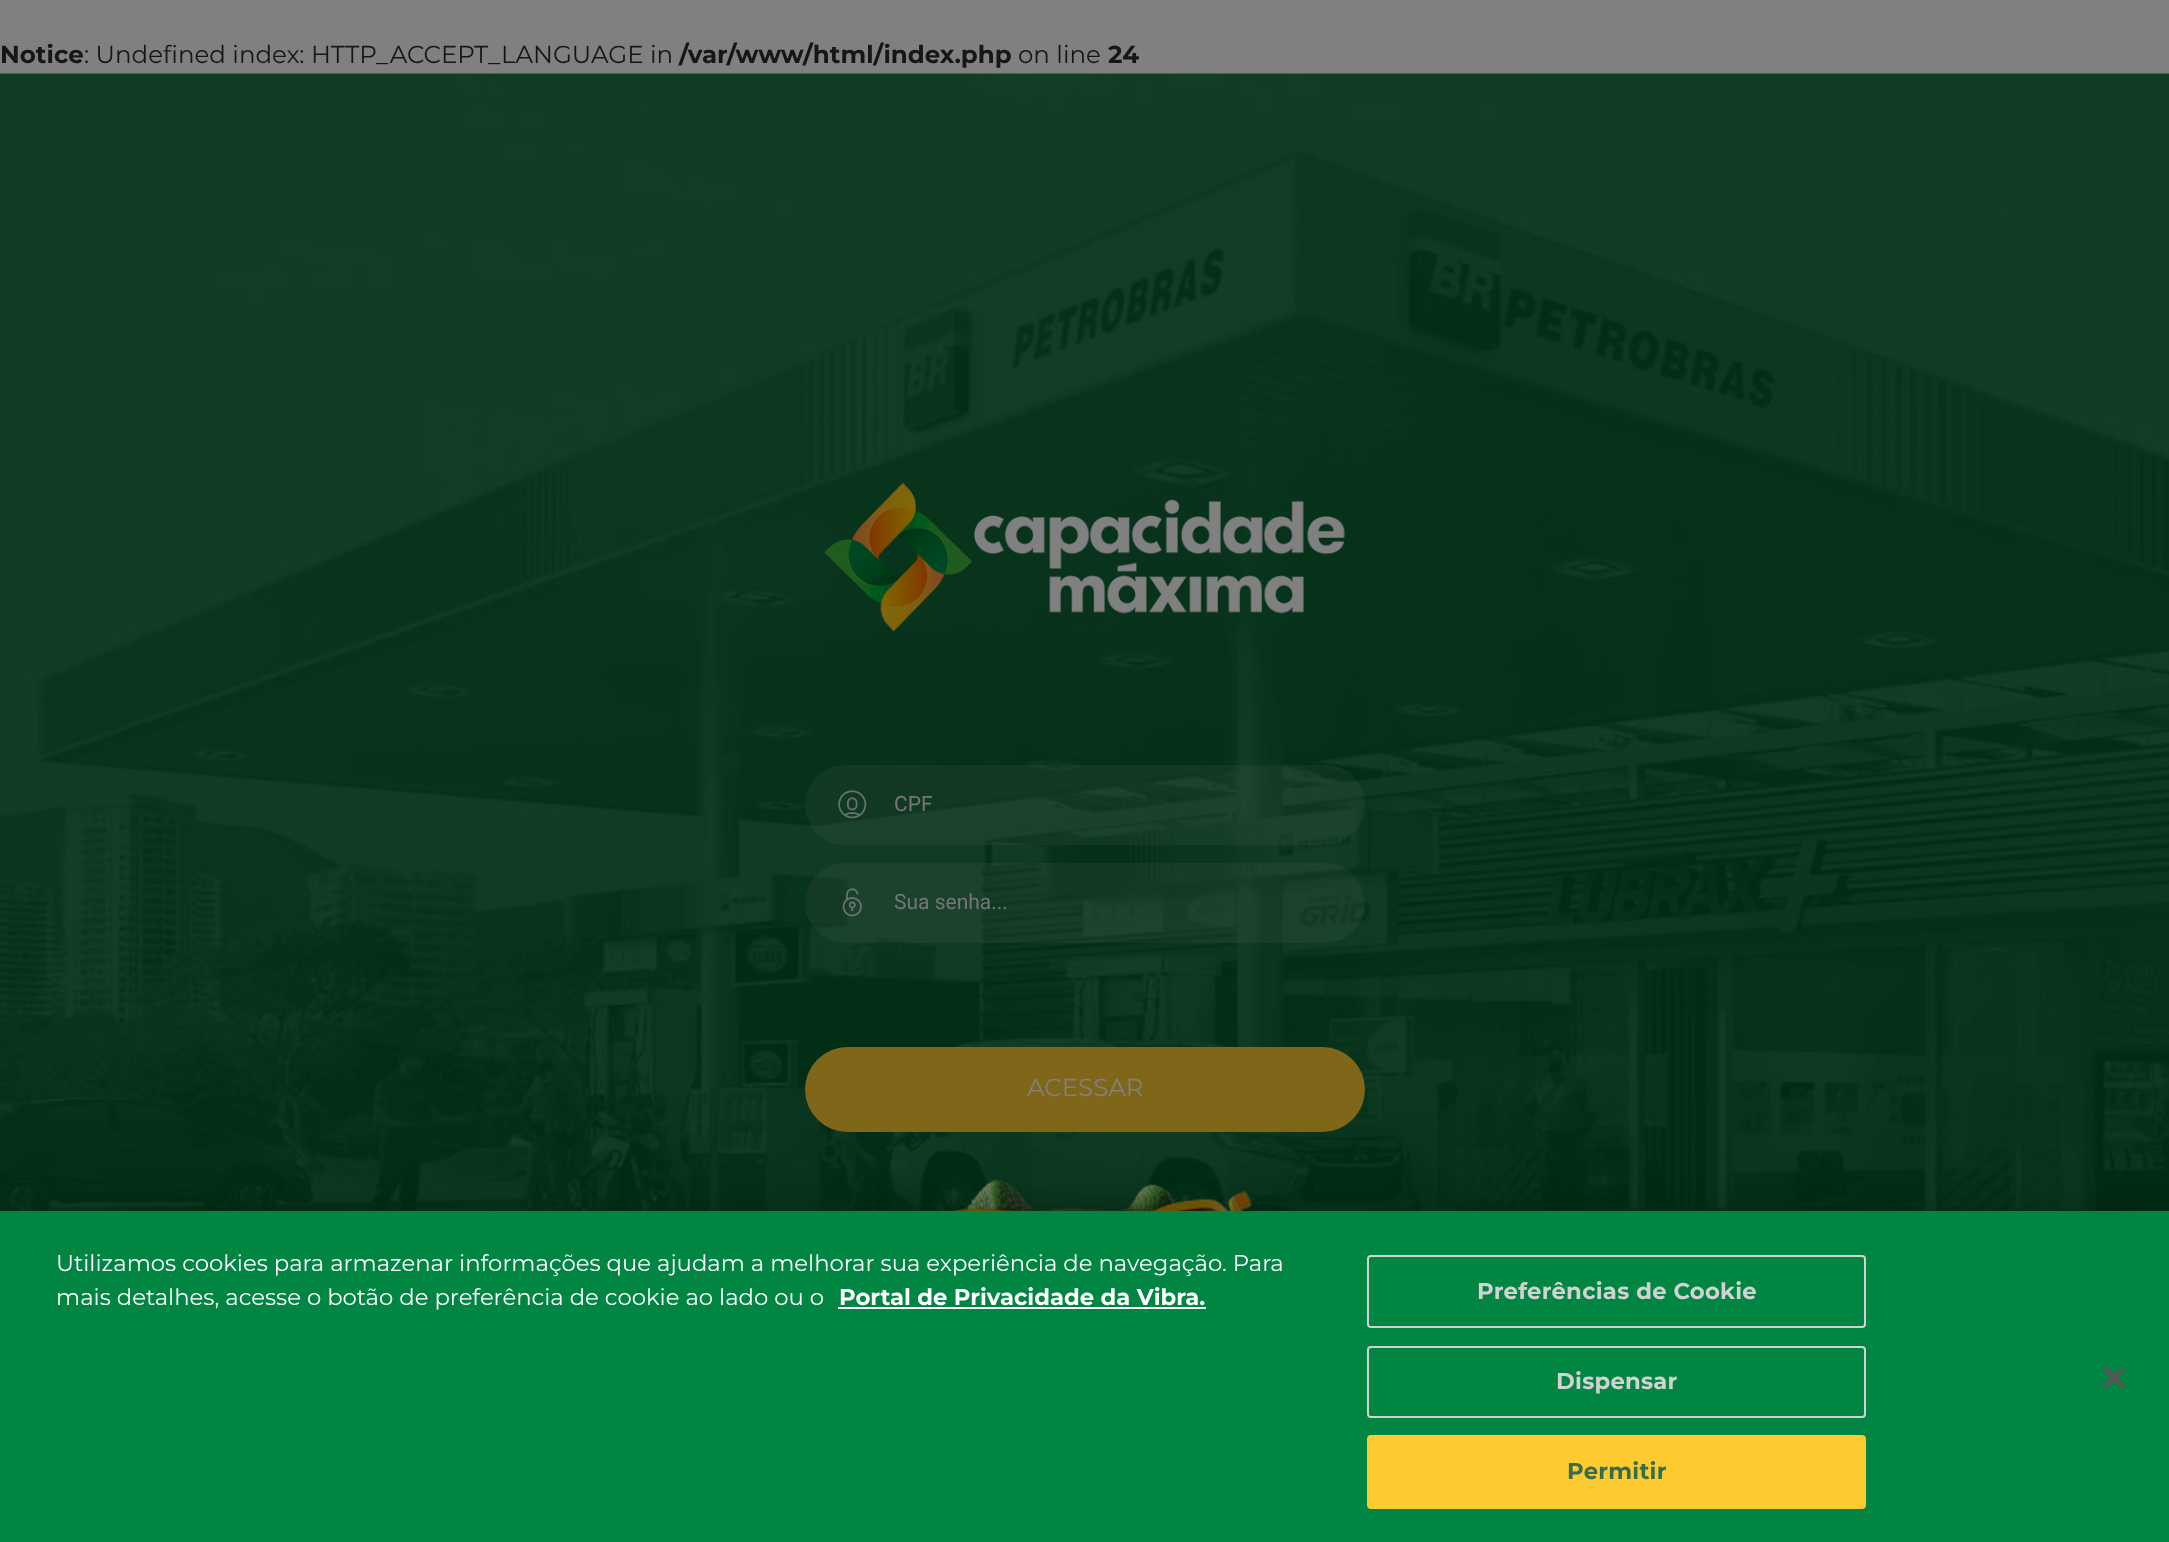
(async () => {
const canvas = document.querySelector("canvas")
canvas.width = 2169
canvas.height = 1542
const c = canvas.getContext("2d")
c.miterLimit = 4
c.fontKerning = "normal"
function T(s,x,y){c.fillText(s,x,y)}
function R(x,y,w,h){c.fillRect(x,y,w,h)}
function Q(x,y,w,h,r){c.beginPath();c.roundRect(x,y,w,h,r);c.fill()}
async function I(src,x,y,w,h){const img=new Image();img.src=src;await img.decode();c.drawImage(img,x,y,w,h)}
c.fillStyle="#808080"
R(0,0,2169,1542)
c.font="bold 24.5px Montserrat"
c.fillStyle="#161616"
T("Notice",0,63)
c.font="24.5px Montserrat"
T(": Undefined index: HTTP_ACCEPT_LANGUAGE in",84,63)
c.font="bold 24.5px Montserrat"
T("/var/www/html/index.php",679,63)
c.font="24.5px Montserrat"
T("on line",1018,63)
c.font="bold 24.5px Montserrat"
T("24",1108,63)
await I("1.png",0,73,2169,1138)
await I("2.png",824,482,521,150)
c.fillStyle="#8080801a"
c.beginPath()
c.roundRect(805,765,61,80,[40,0,0,40])
c.fill()
await I("3.png",838,790,29,29)
c.beginPath()
c.roundRect(866,765,499,80,[0,40,40,0])
c.fill()
c.font="21px Roboto"
c.fillStyle="#767676"
T("CPF",894,811)
c.fillStyle="#8080801a"
c.beginPath()
c.roundRect(805,863,61,80,[40,0,0,40])
c.fill()
await I("4.png",842,888,20,29)
c.beginPath()
c.roundRect(866,863,499,80,[0,40,40,0])
c.fill()
c.fillStyle="#767676"
T("Sua senha...",894,909)
c.fillStyle="#806619"
Q(805,1047,560,85,42.5)
c.font="24.5px Montserrat"
c.fillStyle="#808080"
T("ACESSAR",1027,1096)
c.fillStyle="#00000033"
c.filter="blur(16px)"
c.beginPath()
c.rect(0,1211,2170,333)
c.fill()
c.filter="none"
c.fillStyle="#008543"
R(0,1211,2169,331)
c.font="22.75px Montserrat"
c.fillStyle="#fff"
T("Utilizamos cookies para armazenar informações que ajudam a melhorar sua experiência de navegação. Para",56,1271)
T("mais detalhes, acesse o botão de preferência de cookie ao lado ou o",56,1305)
c.font="bold 22.75px Montserrat"
T("Portal de Privacidade da Vibra.",839,1305)
R(838,1307,368,2)
c.beginPath()
c.roundRect(1368,1256,497,71,3)
c.strokeStyle="#d2d2d2"
c.lineWidth=2
c.stroke()
c.letterSpacing="0.25px"
c.fillStyle="#d2d2d2"
T("Preferências de Cookie",1477,1299)
c.beginPath()
c.roundRect(1368,1347,497,70,3)
c.stroke()
T("Dispensar",1556,1389)
c.fillStyle="#fdca2f"
c.beginPath()
c.roundRect(1368,1436,497,72,3)
c.fill()
c.strokeStyle="#fdca2f"
c.stroke()
c.fillStyle="#346e4a"
T("Permitir",1567,1479)
await I("5.png",2104,1367,21,21)
})()
